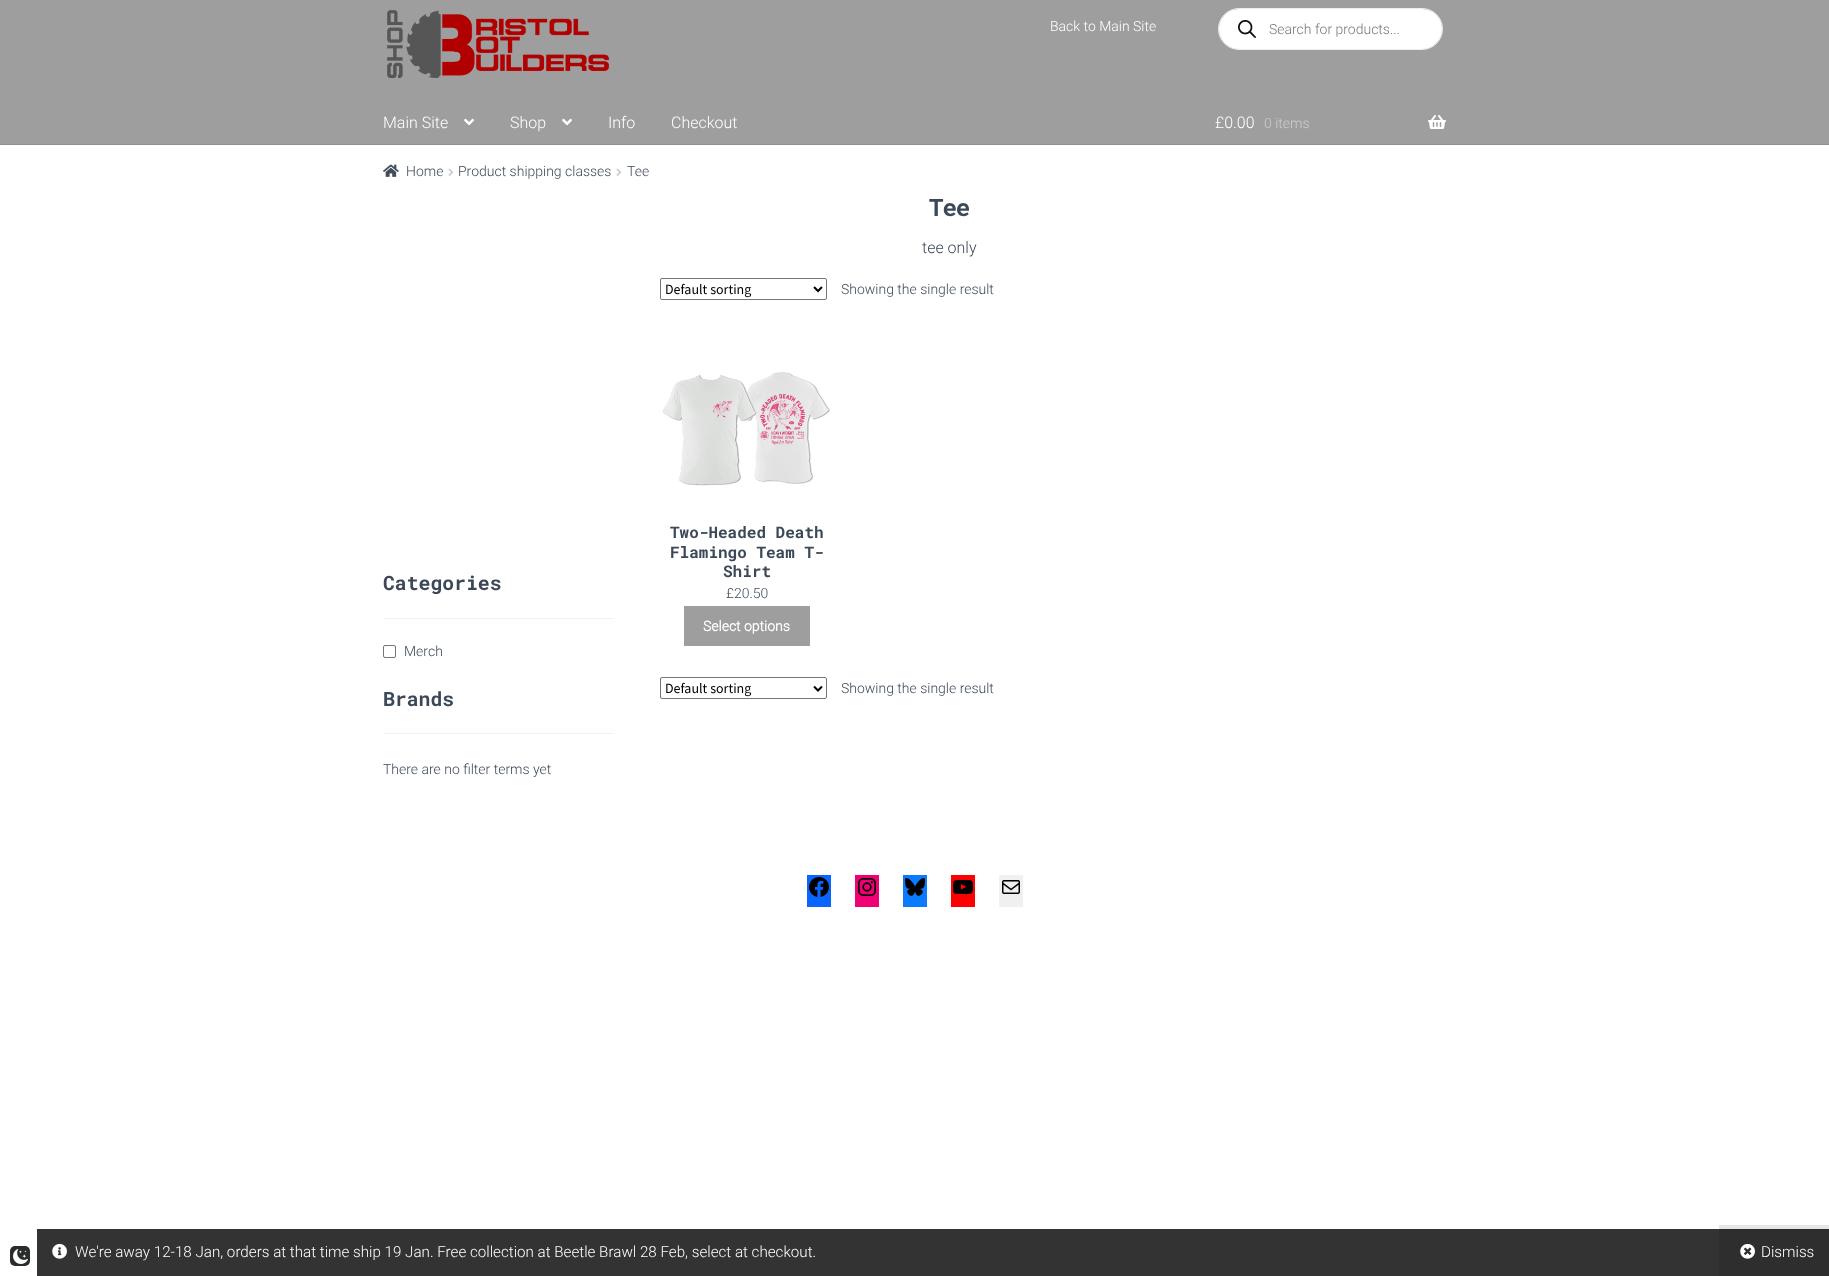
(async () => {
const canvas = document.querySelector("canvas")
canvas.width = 1829
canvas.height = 1276
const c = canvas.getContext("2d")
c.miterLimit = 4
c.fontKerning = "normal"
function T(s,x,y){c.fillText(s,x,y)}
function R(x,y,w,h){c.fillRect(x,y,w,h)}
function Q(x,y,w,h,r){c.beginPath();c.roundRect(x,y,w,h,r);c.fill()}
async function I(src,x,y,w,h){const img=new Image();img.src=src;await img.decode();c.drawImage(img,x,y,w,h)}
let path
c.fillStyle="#fff"
R(0,0,1829,1276)
c.fillStyle="#e6e6e6"
R(1719,1225,110,4)
c.fillStyle="#9e9e9e"
R(0,0,1829,144)
c.fillStyle="#8f8f8f"
R(0,144,1829,1)
await I("1.png",387,10,222,68)
c.font="300 14px Roboto"
c.fillStyle="#fff"
T("Back to Main Site",1050,31)
c.beginPath()
c.roundRect(1218.5,8.5,224,41,20.5)
c.strokeStyle="#eee"
c.stroke()
Q(1219,9,223,40,20)
await I("2.png",1238,20,18,18)
c.fillStyle="#777"
T("Search for products...",1269,34)
c.font="300 16px Roboto"
c.fillStyle="#fff"
T("Main Site",383,128)
await I("3.png",464,118,10,8)
T("Shop",510,128)
await I("3.png",562,118,10,8)
T("Info",608,128)
T("Checkout",671,128)
T("£0.00",1215,128)
c.font="300 14px Roboto"
c.fillStyle="#cfcfcf"
T("0 items",1264,128)
await I("4.png",1428,115,18,14)
await I("5.png",383,164,16,13)
c.fillStyle="#3c4858"
T("Home",406,176)
await I("6.png",448,168,6,8)
T("Product shipping classes",458,176)
await I("6.png",616,168,6,8)
T("Tee",627,176)
c.fillStyle="#f2f2f2"
R(383,618,231,1)
c.font="bold 19.75px Roboto Mono"
c.fillStyle="#3c4858"
T("Categories",383,590)
c.beginPath()
c.roundRect(383.5,645.5,12,12,1.5)
c.strokeStyle="#767676"
c.stroke()
c.font="300 14px Roboto"
T("Merch",404,656)
c.fillStyle="#f2f2f2"
R(383,733,231,1)
c.font="bold 19.75px Roboto Mono"
c.fillStyle="#3c4858"
T("Brands",383,706)
c.font="300 14px Roboto"
T("There are no filter terms yet",383,774)
c.letterSpacing="-1px"
c.font="bold 24px Roboto Mono"
T("Tee",929,216)
c.letterSpacing="0px"
c.font="300 16px Roboto"
T("tee only",922,253)
c.beginPath()
c.roundRect(660.5,278.5,166,21,1.5)
c.stroke()
path = new Path2D("M814 287l4 4l4-4")
c.strokeStyle="#000"
c.lineWidth=2
c.stroke(path)
c.font="14px Source Sans Pro"
c.fillStyle="#000"
T("Default sorting",665,294)
c.font="300 14px Roboto"
c.fillStyle="#3c4858"
T("Showing the single result",841,294)
await I("7.png",662,372,168,114)
c.font="bold 16px Roboto Mono"
T("Two-Headed Death",670,538)
T("Flamingo Team T-",670,558)
T("Shirt",723,577)
c.font="300 14px Roboto"
T("£20.50",726,598)
c.fillStyle="#9e9e9e"
R(684,606,126,40)
c.font="bold 14px Roboto"
c.fillStyle="#fff"
T("Select options",703,631)
c.beginPath()
c.roundRect(660.5,677.5,166,21,1.5)
c.strokeStyle="#767676"
c.lineWidth=1
c.stroke()
path = new Path2D("M814 686.5l4 4l4-4")
c.strokeStyle="#000"
c.lineWidth=2
c.stroke(path)
c.font="14px Source Sans Pro"
c.fillStyle="#000"
T("Default sorting",665,693)
c.font="300 14px Roboto"
c.fillStyle="#3c4858"
T("Showing the single result",841,693)
c.fillStyle="#0866ff"
R(807,875,24,32)
await I("8.png",809,877,20,20)
c.fillStyle="#f00075"
R(855,875,24,32)
await I("9.png",858,878,18,18)
c.fillStyle="#0a7aff"
R(903,875,24,32)
await I("10.png",905,878,20,18)
c.fillStyle="#f00"
R(951,875,24,32)
await I("11.png",953,880,20,14)
c.fillStyle="#f0f0f0"
R(999,875,24,32)
await I("12.png",1002,880,18,14)
c.fillStyle="#2b2d2d"
Q(10,1246,20,20,5)
await I("13.png",13,1249,15,15)
c.fillStyle="#333"
R(37,1229,1682,47)
c.fillStyle="#2e2e2e"
R(1719,1229,110,47)
await I("14.png",52,1243,15,16)
c.font="300 15.2px Roboto"
c.fillStyle="#fff"
T("We're away 12-18 Jan, orders at that time ship 19 Jan. Free collection at Beetle Brawl 28 Feb, select at checkout.",75,1257)
await I("15.png",1740,1243,15,16)
T("Dismiss",1761,1257)
})()
